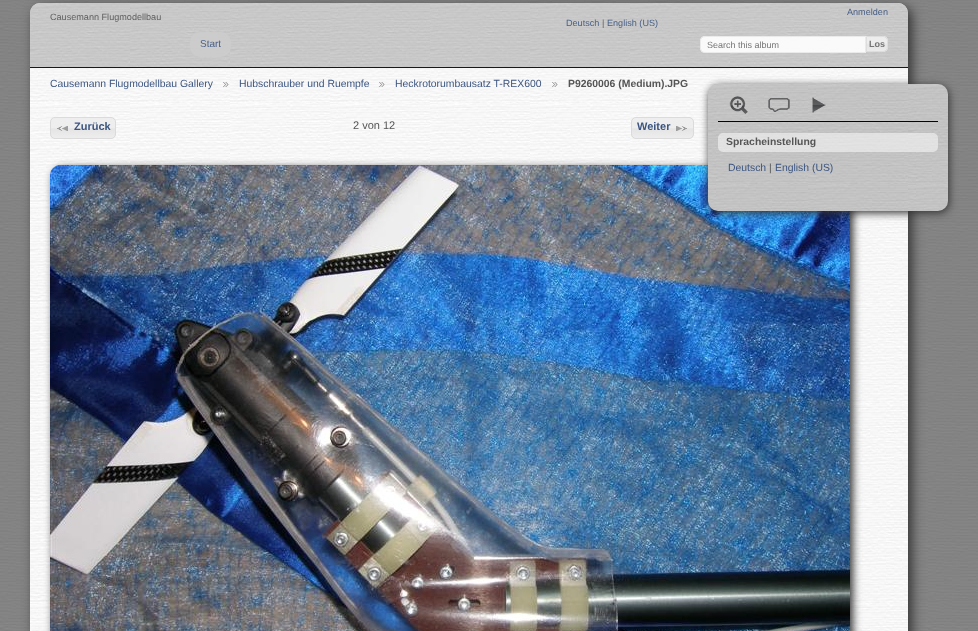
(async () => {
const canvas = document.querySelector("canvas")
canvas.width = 978
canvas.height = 631
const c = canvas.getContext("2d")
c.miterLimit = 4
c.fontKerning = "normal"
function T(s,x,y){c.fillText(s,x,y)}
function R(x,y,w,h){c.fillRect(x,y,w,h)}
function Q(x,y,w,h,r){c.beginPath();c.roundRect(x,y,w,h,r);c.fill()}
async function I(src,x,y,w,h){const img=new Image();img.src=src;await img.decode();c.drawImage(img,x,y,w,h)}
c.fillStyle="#fff"
R(0,0,978,631)
await I("1.png",0,0,978,631)
c.fillStyle="#333"
c.filter="blur(6px)"
c.beginPath()
c.roundRect(34,7,878,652,10)
c.fill()
c.filter="none"
await I("2.png",30,3,878,628)
await I("3.png",30,3,878,65)
c.fillStyle="#050505e6"
R(30,67,878,1)
c.font="9.1px Liberation Sans"
c.fillStyle="#4a6087"
T("Anmelden",847,15)
c.fillStyle="#606060"
T("Causemann Flugmodellbau",50,20)
c.fillStyle="#4a6087"
T("Deutsch",566,26)
c.fillStyle="#606060"
T("|",602,26)
c.fillStyle="#4a6087"
T("English (US)",607,26)
c.fillStyle="#cccccce6"
Q(190,32,41,25,10)
c.font="10px Liberation Sans"
c.fillStyle="#4a6087"
T("Start",200,47)
c.fillStyle="#ffffffe6"
c.beginPath()
c.roundRect(700,36,166,17,[5,0,0,5])
c.fill()
c.beginPath()
c.roundRect(700.5,36.5,165,16,[4.5,0,0,4.5])
c.strokeStyle="#e8e8e8e6"
c.stroke()
c.font="9px Liberation Sans"
c.fillStyle="#757575"
T("Search this album",707,48)
c.fillStyle="#e6e6e6e6"
c.beginPath()
c.roundRect(866,36,22,16,[0,5,5,0])
c.fill()
await I("4.png",866,36,22,16)
c.beginPath()
c.roundRect(866.5,36.5,21,15,[0,4.5,4.5,0])
c.strokeStyle="#dbdbdbe6"
c.stroke()
c.font="bold 9px Liberation Sans"
c.fillStyle="#757575"
T("Los",869,47)
c.font="10.4px Liberation Sans"
c.fillStyle="#3c5580"
T("Causemann Flugmodellbau Gallery",50,87)
await I("5.png",223,82,6,5)
T("Hubschrauber und Ruempfe",239,87)
await I("6.png",379,82,6,5)
T("Heckrotorumbausatz T-REX600",395,87)
await I("7.png",552,82,6,5)
c.font="bold 10.4px Liberation Sans"
c.fillStyle="#555"
T("P9260006 (Medium).JPG",568,87)
await I("8.png",50,117,66,22)
c.beginPath()
c.roundRect(50.5,117.5,65,21,4.5)
c.strokeStyle="#dbdbdb"
c.stroke()
await I("9.png",57,126,11,5)
c.font="bold 11px Liberation Sans"
c.fillStyle="#3c5580"
T("Zurück",74,130)
c.font="11px Liberation Sans"
c.fillStyle="#555"
T("2 von 12",353,129)
await I("10.png",631,117,63,22)
c.beginPath()
c.roundRect(631.5,117.5,62,21,4.5)
c.stroke()
c.font="bold 11px Liberation Sans"
c.fillStyle="#3c5580"
T("Weiter",637,130)
await I("11.png",676,126,11,5)
c.fillStyle="#333"
c.filter="blur(4px)"
c.beginPath()
c.roundRect(53,168,800,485,10)
c.fill()
c.filter="none"
await I("12.png",50,165,800,466)
c.filter="blur(4px)"
c.beginPath()
c.roundRect(709,86,240,127,10)
c.fill()
c.filter="none"
await I("13.png",708,84,240,127)
c.fillStyle="#050505"
R(718,121,220,1)
await I("14.png",729,96,19,18)
await I("15.png",768,98,22,14)
await I("16.png",812,97,14,16)
c.fillStyle="#ffffff80"
Q(718,133,220,19,5)
c.font="bold 10.4px Liberation Sans"
c.fillStyle="#555"
T("Spracheinstellung",726,145)
c.font="10.4px Liberation Sans"
c.fillStyle="#3c5580"
T("Deutsch",728,171)
c.fillStyle="#555"
T("|",769,171)
c.fillStyle="#3c5580"
T("English (US)",775,171)
})()
